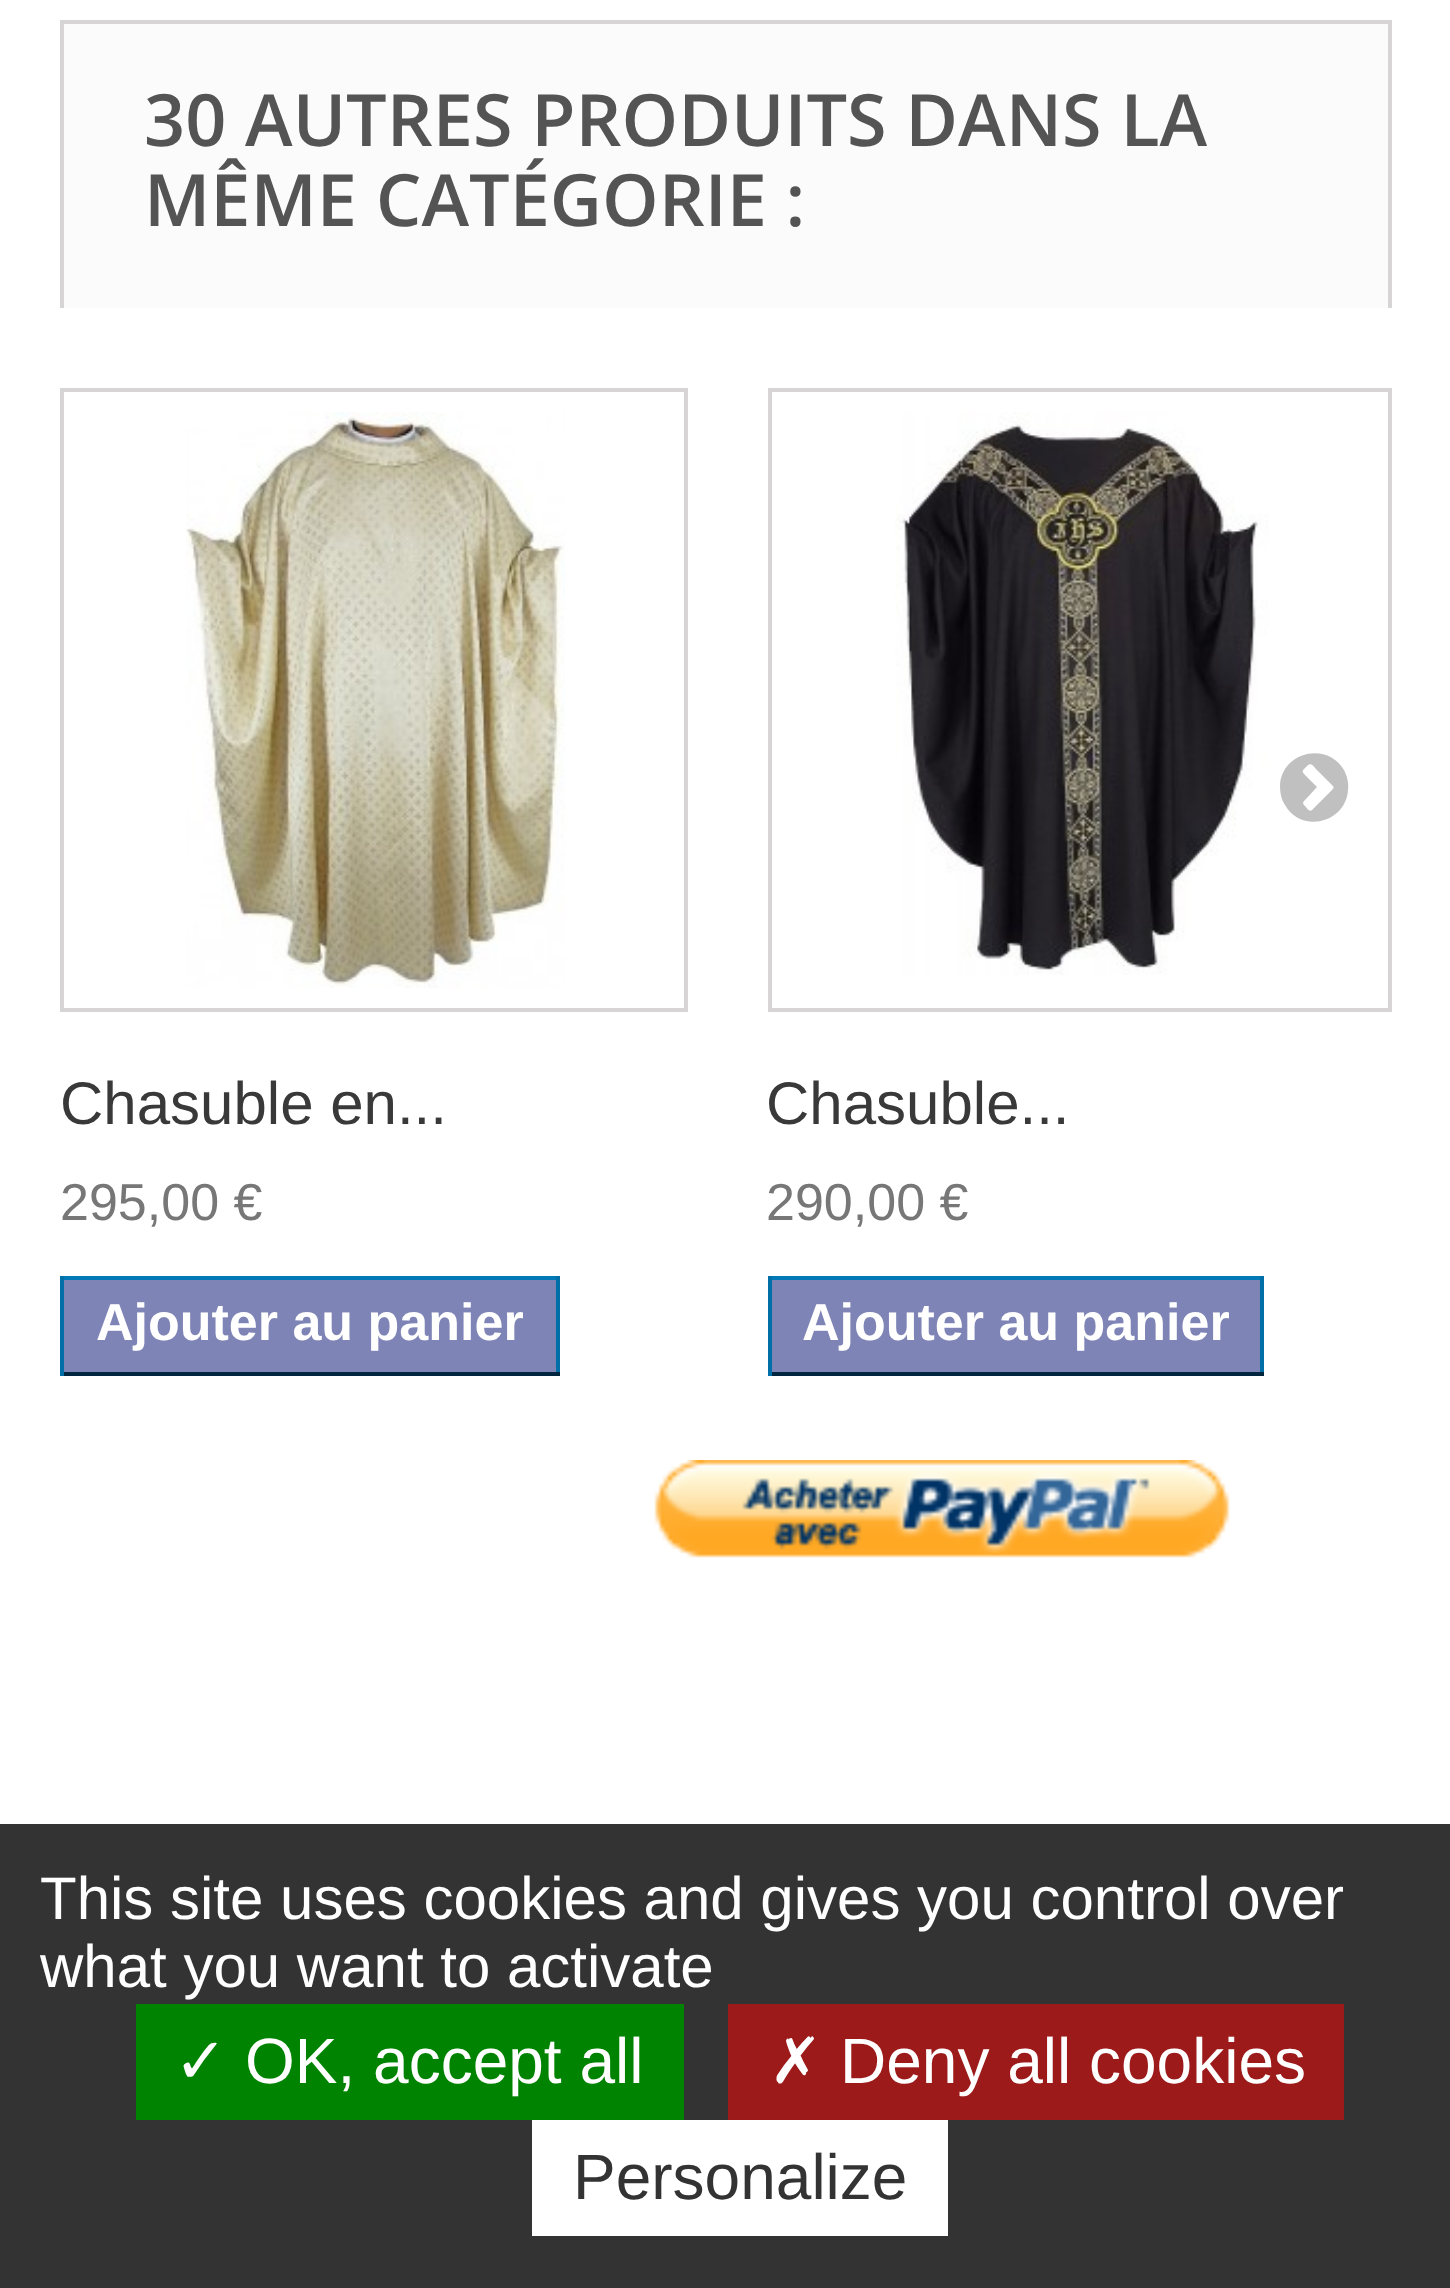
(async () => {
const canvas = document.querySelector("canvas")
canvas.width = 1450
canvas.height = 2288
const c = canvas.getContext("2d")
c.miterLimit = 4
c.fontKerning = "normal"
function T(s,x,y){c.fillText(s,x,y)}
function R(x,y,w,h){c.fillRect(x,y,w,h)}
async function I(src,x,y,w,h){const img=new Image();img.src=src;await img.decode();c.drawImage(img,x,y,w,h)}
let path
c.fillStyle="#fff"
R(0,0,1450,2288)
c.fillStyle="#fbfbfb"
R(64,24,1324,284)
c.fillStyle="#d6d4d4"
R(60,20,1332,4)
R(1388,20,4,288)
R(60,20,4,288)
c.font="600 72px Open Sans"
c.fillStyle="#555454"
T("30 AUTRES PRODUITS DANS LA",144,146)
T("MÊME CATÉGORIE :",144,226)
c.strokeStyle="#d6d4d4"
c.lineWidth=4
c.strokeRect(770,390,620,620)
c.fillStyle="#c0c0c0"
path = new Path2D("M1312 810l17-17c6-6 6-5 0-11l-10-10c-5-4-7-11-12-6c-5 5-6 5-1 10l11 11l-11 12c-4 4-4 4 0 8c1 2 4 5 6 3zm32-40c3 6 5 13 4 20c-2 33-47 44-63 15c-4-6-5-13-5-20c2-33 47-44 64-15z")
c.fill(path)
c.strokeRect(62,390,624,620)
await I("1.png",186,412,379,576)
c.font="60px Liberation Sans"
c.fillStyle="#3a3939"
T("Chasuble en...",60,1124)
c.font="52px Liberation Sans"
c.fillStyle="#777"
T("295,00 €",60,1220)
c.fillStyle="#0079b6"
R(60,1276,500,4)
c.fillStyle="#006fa8"
R(556,1276,4,100)
c.fillStyle="#012740"
R(60,1372,500,4)
c.fillStyle="#006fa8"
R(60,1276,4,100)
c.fillStyle="#7f84b6"
R(64,1280,492,92)
c.font="bold 52px Liberation Sans"
c.fillStyle="#fff"
T("Ajouter au panier",96,1340)
await I("2.png",895,412,374,563)
c.font="60px Liberation Sans"
c.fillStyle="#3a3939"
T("Chasuble...",766,1124)
c.font="52px Liberation Sans"
c.fillStyle="#777"
T("290,00 €",766,1220)
c.fillStyle="#0079b6"
R(768,1276,496,4)
c.fillStyle="#006fa8"
R(1260,1276,4,100)
c.fillStyle="#012740"
R(768,1372,496,4)
c.fillStyle="#006fa8"
R(768,1276,4,100)
c.fillStyle="#7f84b6"
R(772,1280,488,92)
c.font="bold 52px Liberation Sans"
c.fillStyle="#fff"
T("Ajouter au panier",802,1340)
await I("3.png",654,1460,576,98)
c.fillStyle="#333"
R(0,1824,1450,464)
c.font="60px Liberation Sans"
c.fillStyle="#fff"
T("This site uses cookies and gives you control over",40,1919)
T("what you want to activate",40,1987)
c.fillStyle="#008300"
R(136,2004,548,116)
c.font="64px DejaVu Sans"
c.fillStyle="#fff"
T("✓",174,2083)
c.font="64px Liberation Sans"
T("OK, accept all",245,2083)
c.fillStyle="#9c1a1a"
R(728,2004,616,116)
c.font="64px DejaVu Sans"
c.fillStyle="#fff"
T("✗",769,2083)
c.font="64px Liberation Sans"
T("Deny all cookies",840,2083)
R(532,2120,416,116)
c.fillStyle="#333"
T("Personalize",573,2199)
})()
